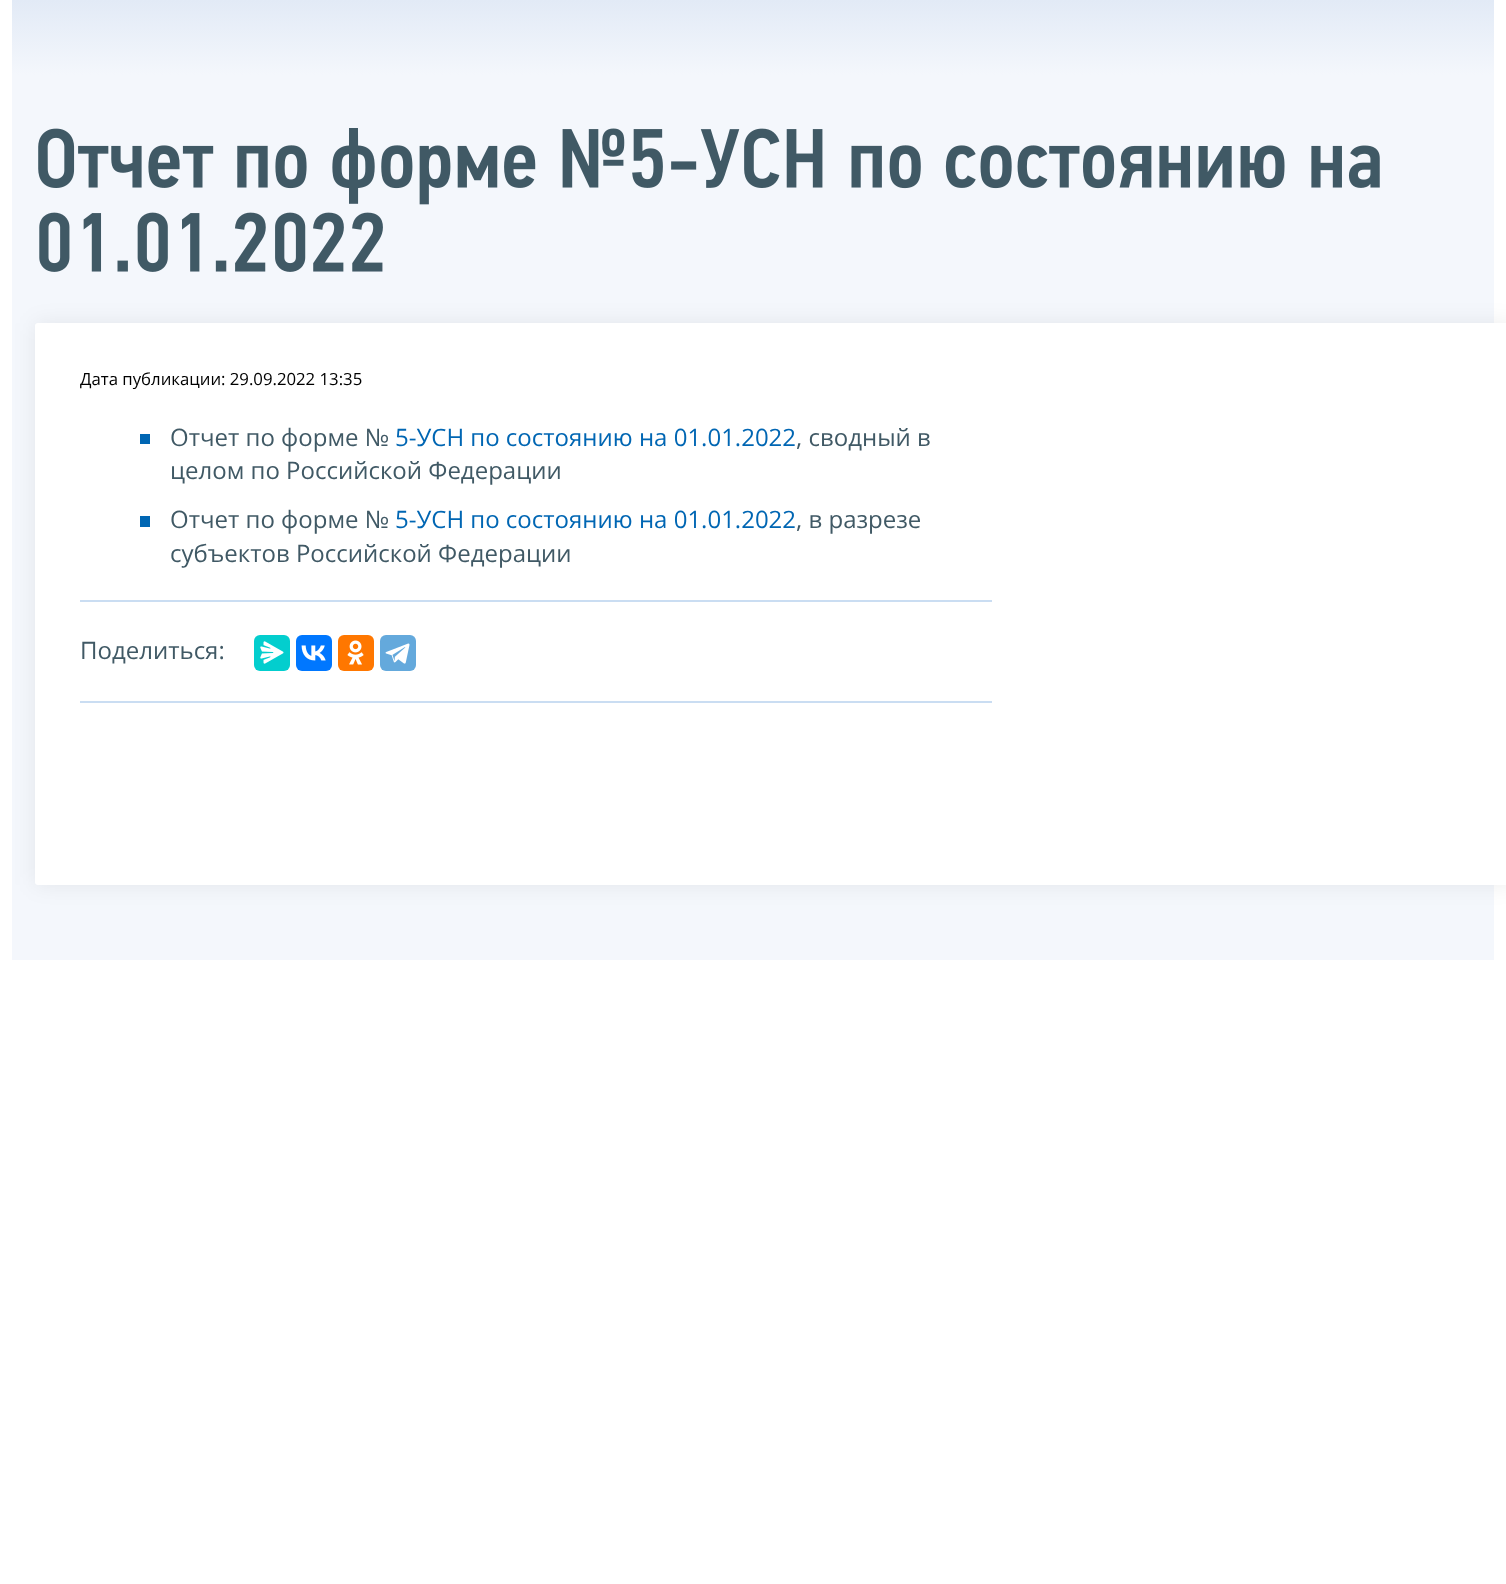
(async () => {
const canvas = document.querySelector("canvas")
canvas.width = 1506
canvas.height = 1584
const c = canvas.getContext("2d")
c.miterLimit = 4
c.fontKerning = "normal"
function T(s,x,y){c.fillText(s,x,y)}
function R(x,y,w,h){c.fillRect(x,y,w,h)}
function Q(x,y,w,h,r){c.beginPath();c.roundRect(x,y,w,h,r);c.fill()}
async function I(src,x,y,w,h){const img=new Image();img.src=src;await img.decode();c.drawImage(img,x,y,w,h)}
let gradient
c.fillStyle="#fff"
R(0,0,1506,1584)
c.fillStyle="#f4f7fc"
R(12,75,1482,885)
gradient = c.createLinearGradient(753,0,753,75)
gradient.addColorStop(0,"#e2eaf6")
gradient.addColorStop(1,"#f4f7fc")
c.fillStyle = gradient
R(12,0,1482,75)
await I("1.png",38,128,1342,77)
await I("2.png",39,212,344,60)
c.fillStyle="#00000012"
c.filter="blur(11px)"
c.beginPath()
c.roundRect(35,323,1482,562,3)
c.fill()
c.filter="none"
c.fillStyle="#fff"
Q(35,323,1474,562,3)
c.font="16.75px Open Sans"
c.fillStyle="#000"
T("Дата публикации: 29.09.2022 13:35",80,385)
c.fillStyle="#0066b3"
R(140,434,10,10)
c.font="24px Open Sans"
c.fillStyle="#405965"
T("Отчет по форме №",170,446)
c.fillStyle="#0066b3"
T("5-УСН по состоянию на 01.01.2022",395,446)
c.fillStyle="#405965"
T(", сводный в",796,446)
T("целом по Российской Федерации",170,479)
c.fillStyle="#0066b3"
R(140,516,10,11)
c.fillStyle="#405965"
T("Отчет по форме №",170,528)
c.fillStyle="#0066b3"
T("5-УСН по состоянию на 01.01.2022",395,528)
c.fillStyle="#405965"
T(", в разрезе",796,528)
T("субъектов Российской Федерации",170,562)
c.fillStyle="#caddf2"
R(80,600,912,2)
R(80,701,912,2)
c.fillStyle="#405965"
T("Поделиться:",80,659)
c.fillStyle="#03cece"
Q(254,635,36,36,6)
await I("3.png",260,641,24,23)
c.fillStyle="#07f"
Q(296,635,36,36,6)
await I("4.png",301,645,25,16)
c.fillStyle="#f70"
Q(338,635,36,36,6)
await I("5.png",347,640,17,25)
c.fillStyle="#64a9dc"
Q(380,635,36,36,6)
await I("6.png",385,643,25,21)
})()
